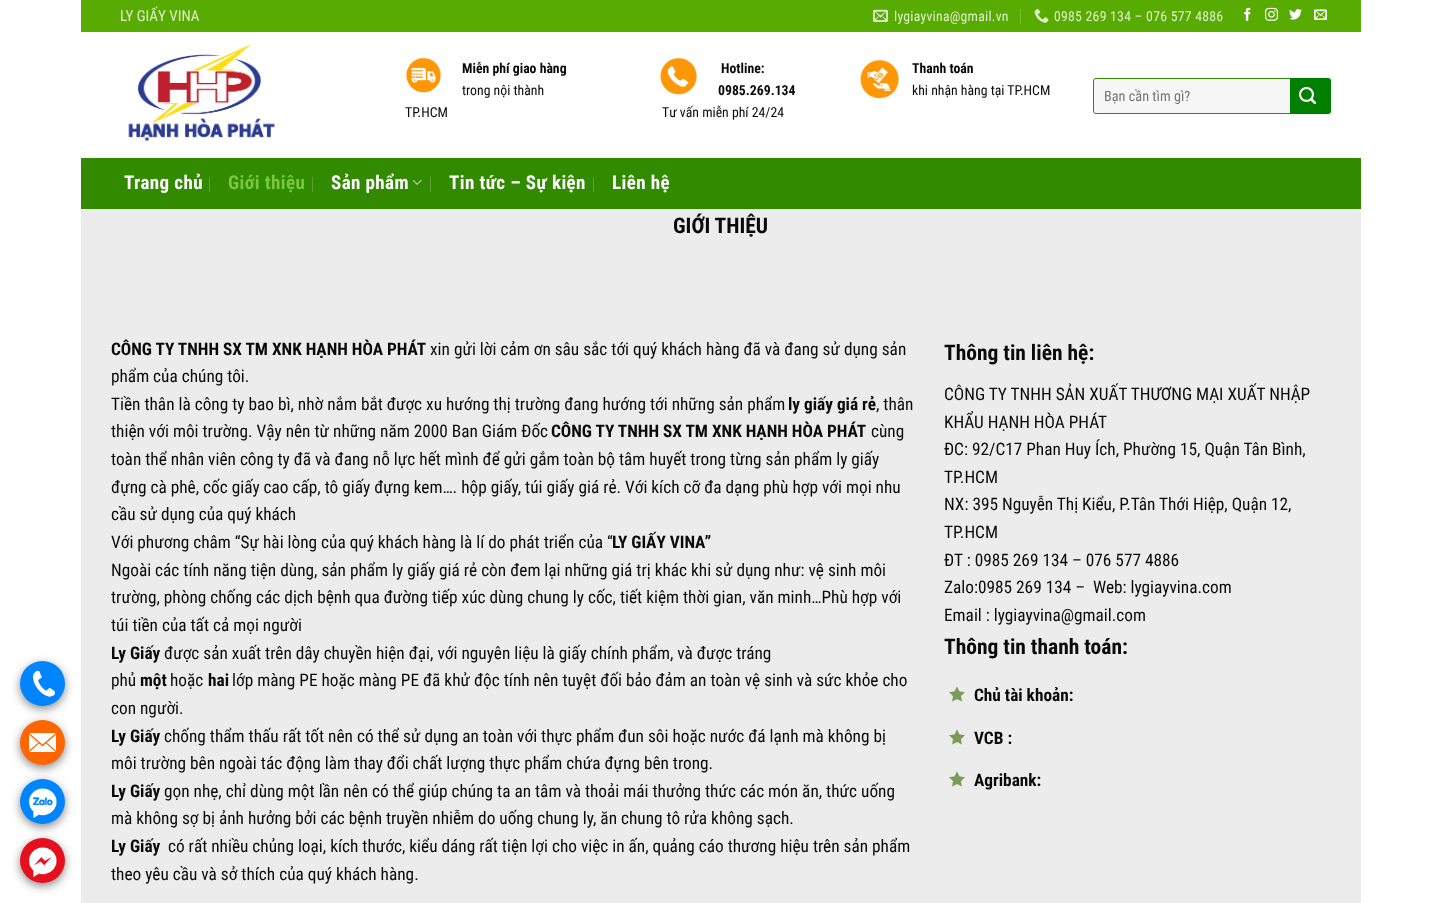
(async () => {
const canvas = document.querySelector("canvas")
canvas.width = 1441
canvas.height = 903
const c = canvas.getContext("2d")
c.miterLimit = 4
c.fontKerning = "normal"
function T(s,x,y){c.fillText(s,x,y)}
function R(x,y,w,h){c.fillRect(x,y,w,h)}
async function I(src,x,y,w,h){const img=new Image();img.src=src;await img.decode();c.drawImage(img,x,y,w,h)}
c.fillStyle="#fff"
R(0,0,1441,903)
c.fillStyle="#888"
c.filter="blur(5px)"
c.beginPath()
c.roundRect(20,664,45,45,22.5)
c.fill()
c.filter="none"
c.fillStyle="#0084ff"
c.beginPath()
c.arc(42.5,683.5,22.5,0,7)
c.fill()
await I("1.png",32,670,23,27)
c.fillStyle="#888"
c.filter="blur(5px)"
c.beginPath()
c.roundRect(20,723,45,45,22.5)
c.fill()
c.filter="none"
c.fillStyle="#f60"
c.beginPath()
c.arc(42.5,742.5,22.5,0,7)
c.fill()
await I("2.png",29,733,27,19)
c.fillStyle="#888"
c.filter="blur(5px)"
c.beginPath()
c.roundRect(20,782,45,45,22.5)
c.fill()
c.filter="none"
c.fillStyle="#0084ff"
c.beginPath()
c.arc(42.5,801.5,22.5,0,7)
c.fill()
await I("3.png",29,788,28,30)
c.fillStyle="#888"
c.filter="blur(5px)"
c.beginPath()
c.roundRect(20,841,45,45,22.5)
c.fill()
c.filter="none"
c.fillStyle="#e60f1e"
c.beginPath()
c.arc(42.5,860.5,22.5,0,7)
c.fill()
await I("4.png",29,847,28,30)
c.fillStyle="#58ab00"
R(81,0,1280,32)
c.font="15px Roboto Condensed"
c.fillStyle="#deeecc"
T("LY GIẤY VINA",120,21)
await I("5.png",873,9,15,13)
c.letterSpacing="0.25px"
c.font="13.75px Roboto Condensed"
T("lygiayvina@gmail.vn",894,21)
c.fillStyle="#79bc33"
R(1020,9,1,15)
await I("6.png",1034,8,15,15)
c.fillStyle="#deeecc"
T("0985 269 134 – 076 577 4886",1054,21)
await I("7.png",1244,7,7,14)
await I("8.png",1265,7,13,14)
await I("9.png",1289,9,13,11)
await I("10.png",1314,9,13,11)
await I("11.png",128,44,147,97)
await I("12.png",406,57,35,36)
c.letterSpacing="0px"
c.font="bold 13.75px Roboto Condensed"
c.fillStyle="#0a0a0a"
T("Miễn phí giao hàng",462,73)
c.font="13.75px Roboto Condensed"
T("trong nội thành",462,95)
T("TP.HCM",405,117)
await I("13.png",660,57,37,38)
c.font="bold 13.75px Roboto Condensed"
T("Hotline:",721,73)
T("0985.269.134",718,95)
c.font="13.75px Roboto Condensed"
T("Tư vấn miễn phí 24/24",662,117)
await I("14.png",860,59,39,40)
c.font="bold 13.75px Roboto Condensed"
T("Thanh toán",912,73)
c.font="13.75px Roboto Condensed"
T("khi nhận hàng tại TP.HCM",912,95)
c.fillStyle="#f7f7f7"
c.beginPath()
c.roundRect(1093.5,78.5,201,35,2.5)
c.fill()
c.strokeStyle="#318a00"
c.stroke()
c.font="14.25px Roboto Condensed"
c.fillStyle="#757575"
T("Bạn cần tìm gì?",1104,101)
c.fillStyle="#008000"
c.beginPath()
c.roundRect(1290,78,41,36,[0,3,3,0])
c.fill()
await I("15.png",1299,87,18,18)
c.fillStyle="#318a00"
R(81,158,1280,51)
c.letterSpacing="0.4px"
c.font="bold 19px Roboto Condensed"
c.fillStyle="#fff"
T("Trang chủ",124,189)
c.fillStyle="#5aa133"
R(209,177,1,15)
c.fillStyle="#78c93e"
T("Giới thiệu",228,189)
c.fillStyle="#5aa133"
R(312,177,1,15)
c.fillStyle="#fff"
T("Sản phẩm",331,189)
await I("16.png",412,179,10,6)
c.fillStyle="#5aa133"
R(430,177,1,15)
c.fillStyle="#fff"
T("Tin tức – Sự kiện",449,189)
c.fillStyle="#5aa133"
R(593,177,1,15)
c.fillStyle="#fff"
T("Liên hệ",612,189)
c.fillStyle="#ececec"
R(81,209,1280,694)
c.letterSpacing="0px"
c.font="bold 21.5px Roboto Condensed"
c.fillStyle="#0a0a0a"
T("GIỚI THIỆU",673,233)
c.font="bold 17.3px Roboto Condensed"
T("CÔNG TY TNHH SX TM XNK HẠNH HÒA PHÁT",111,355)
c.font="17.3px Roboto Condensed"
T("xin gửi lời cảm ơn sâu sắc tới quý khách hàng đã và đang sử dụng sản",430,355)
T("phẩm của chúng tôi.",111,382)
T("Tiền thân là công ty bao bì, nhờ nắm bắt được xu hướng thị trường đang hướng tới những sản phẩm",111,410)
c.font="bold 17.3px Roboto Condensed"
T("ly giấy giá rẻ",788,410)
c.font="17.3px Roboto Condensed"
T(", thân",876,410)
T("thiện với môi trường. Vậy nên từ những năm 2000 Ban Giám Đốc",111,437)
c.font="bold 17.3px Roboto Condensed"
T("CÔNG TY TNHH SX TM XNK HẠNH HÒA PHÁT",551,437)
c.font="17.3px Roboto Condensed"
T("cùng",871,437)
T("toàn thể nhân viên công ty đã và đang nỗ lực hết mình để gửi gắm toàn bộ tâm huyết trong từng sản phẩm ly giấy",111,465)
T("đựng cà phê, cốc giấy cao cấp, tô giấy đựng kem…. hộp giấy, túi giấy giá rẻ. Với kích cỡ đa dạng phù hợp với mọi nhu",111,493)
T("cầu sử dụng của quý khách",111,520)
T("Với phương châm “Sự hài lòng của quý khách hàng là lí do phát triển của “",111,548)
c.font="bold 17.3px Roboto Condensed"
T("LY GIẤY VINA”",612,548)
c.font="17.3px Roboto Condensed"
T("Ngoài các tính năng tiện dùng, sản phẩm ly giấy giá rẻ còn đem lại những giá trị khác khi sử dụng như: vệ sinh môi",111,576)
T("trường, phòng chống các dịch bệnh qua đường tiếp xúc dùng chung ly cốc, tiết kiệm thời gian, văn minh…Phù hợp với",111,603)
T("túi tiền của tất cả mọi người",111,631)
c.font="bold 17.3px Roboto Condensed"
T("Ly Giấy",111,659)
c.font="17.3px Roboto Condensed"
T("được sản xuất trên dây chuyền hiện đại, với nguyên liệu là giấy chính phẩm, và được tráng",164,659)
T("phủ",111,686)
c.font="bold 17.3px Roboto Condensed"
T("một",140,686)
c.font="17.3px Roboto Condensed"
T("hoặc",170,686)
c.font="bold 17.3px Roboto Condensed"
T("hai",208,686)
c.font="17.3px Roboto Condensed"
T("lớp màng PE hoặc màng PE đã khử độc tính nên tuyệt đối bảo đảm an toàn vệ sinh và sức khỏe cho",232,686)
T("con người.",111,714)
c.font="bold 17.3px Roboto Condensed"
T("Ly Giấy",111,742)
c.font="17.3px Roboto Condensed"
T("chống thẩm thấu rất tốt nên có thể sử dụng an toàn với thực phẩm đun sôi hoặc nước đá lạnh mà không bị",164,742)
T("môi trường bên ngoài tác động làm thay đổi chất lượng thực phẩm chứa đựng bên trong.",111,769)
c.font="bold 17.3px Roboto Condensed"
T("Ly Giấy",111,797)
c.font="17.3px Roboto Condensed"
T("gọn nhẹ, chỉ dùng một lần nên có thể giúp chúng ta an tâm và thoải mái thưởng thức các món ăn, thức uống",164,797)
T("mà không sợ bị ảnh hưởng bởi các bệnh truyền nhiễm do uống chung ly, ăn chung tô rửa không sạch.",111,824)
c.font="bold 17.3px Roboto Condensed"
T("Ly Giấy",111,852)
c.font="17.3px Roboto Condensed"
T("có rất nhiều chủng loại, kích thước, kiểu dáng rất tiện lợi cho việc in ấn, quảng cáo thương hiệu trên sản phẩm",168,852)
T("theo yêu cầu và sở thích của quý khách hàng.",111,880)
c.font="bold 21.5px Roboto Condensed"
T("Thông tin liên hệ:",944,360)
c.font="17.3px Roboto Condensed"
T("CÔNG TY TNHH SẢN XUẤT THƯƠNG MẠI XUẤT NHẬP",944,400)
T("KHẨU HẠNH HÒA PHÁT",944,428)
T("ĐC: 92/C17 Phan Huy Ích, Phường 15, Quận Tân Bình,",944,455)
T("TP.HCM",944,483)
T("NX: 395 Nguyễn Thị Kiểu, P.Tân Thới Hiệp, Quận 12,",944,510)
T("TP.HCM",944,538)
T("ĐT : 0985 269 134 – 076 577 4886",944,566)
T("Zalo:0985 269 134 –  Web: lygiayvina.com",944,593)
T("Email : lygiayvina@gmail.com",944,621)
c.font="bold 21.5px Roboto Condensed"
T("Thông tin thanh toán:",944,654)
await I("17.png",949,686,16,16)
c.font="bold 17.3px Roboto Condensed"
T("Chủ tài khoản:",974,701)
await I("17.png",949,729,16,16)
T("VCB :",974,744)
await I("17.png",949,771,16,16)
T("Agribank:",974,786)
})()
